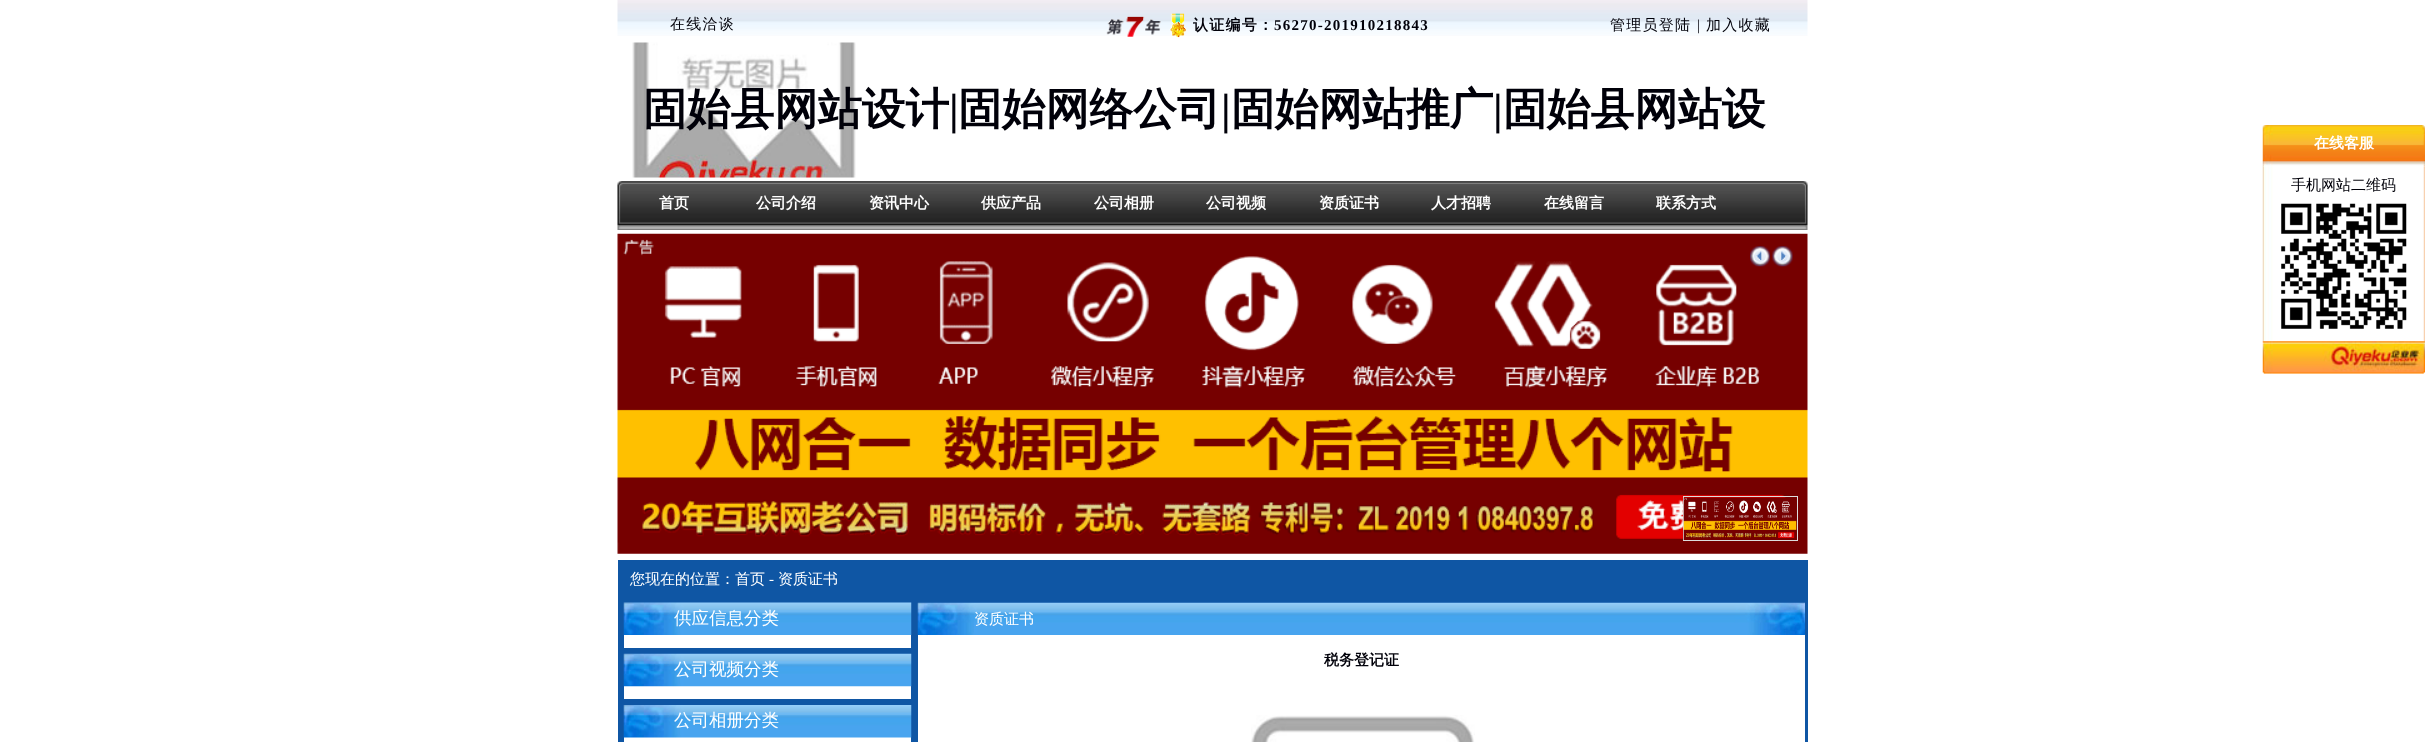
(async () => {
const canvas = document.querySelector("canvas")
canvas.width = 2425
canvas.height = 742
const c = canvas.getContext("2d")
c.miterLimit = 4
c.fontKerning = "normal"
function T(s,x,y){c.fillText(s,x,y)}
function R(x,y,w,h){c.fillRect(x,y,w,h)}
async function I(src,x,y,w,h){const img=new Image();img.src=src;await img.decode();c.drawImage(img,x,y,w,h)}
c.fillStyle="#fff"
R(0,0,2425,742)
await I("1.png",617,0,1191,36)
c.letterSpacing="1.25px"
c.font="500 15px WenQuanYi Zen Hei"
c.fillStyle="#000009"
T("在线洽谈",670,29)
await I("2.png",1106,16,55,21)
await I("3.png",1169,13,18,25)
c.font="bold 15px WenQuanYi Zen Hei"
T("认证编号：",1193,30)
c.font="bold 15px Liberation Serif"
T("56270-201910218843",1274,30)
c.font="500 15px WenQuanYi Zen Hei"
T("管理员登陆",1610,30)
c.font="15px Liberation Serif"
T("|",1697,30)
c.font="500 15px WenQuanYi Zen Hei"
T("加入收藏",1706,30)
await I("4.png",632,42,224,136)
c.letterSpacing="0px"
c.font="bold 43.75px WenQuanYi Zen Hei"
T("固始县网站设计",643,124)
c.font="bold 43.75px Liberation Serif"
T("|",949,124)
c.font="bold 43.75px WenQuanYi Zen Hei"
T("固始网络公司",958,124)
c.font="bold 43.75px Liberation Serif"
T("|",1221,124)
c.font="bold 43.75px WenQuanYi Zen Hei"
T("固始网站推广",1231,124)
c.font="bold 43.75px Liberation Serif"
T("|",1493,124)
c.font="bold 43.75px WenQuanYi Zen Hei"
T("固始县网站设",1503,124)
await I("5.png",2262,125,163,42)
c.font="bold 15px WenQuanYi Zen Hei"
c.fillStyle="#fff"
T("在线客服",2314,148)
await I("6.png",2262,166,163,176)
c.font="500 15px WenQuanYi Zen Hei"
c.fillStyle="#000009"
T("手机网站二维码",2291,190)
await I("7.png",2281,203,126,126)
await I("8.png",2262,341,163,33)
await I("9.png",617,181,1191,49)
c.font="bold 15px WenQuanYi Zen Hei"
c.fillStyle="#fff"
T("首页",659,208)
T("公司介绍",756,208)
T("资讯中心",869,208)
T("供应产品",981,208)
T("公司相册",1094,208)
T("公司视频",1206,208)
T("资质证书",1319,208)
T("人才招聘",1431,208)
T("在线留言",1544,208)
T("联系方式",1656,208)
await I("10.png",617,233,1191,321)
await I("11.png",1750,246,20,21)
await I("12.png",1772,246,21,21)
c.strokeStyle="#ddd"
c.strokeRect(1683.5,496.5,114,44)
await I("13.png",1683,497,114,43)
c.fillStyle="#0f56a4"
R(618,560,1190,182)
c.font="500 15px WenQuanYi Zen Hei"
c.fillStyle="#fff"
T("您现在的位置：首页",630,584)
c.font="15px Liberation Serif"
T("-",769,584)
c.font="500 15px WenQuanYi Zen Hei"
T("资质证书",778,584)
R(624,635,287,13)
await I("14.png",623,602,289,33)
c.font="500 17.5px WenQuanYi Zen Hei"
T("供应信息分类",674,624)
R(624,686,287,13)
await I("15.png",623,653,289,34)
T("公司视频分类",674,675)
R(624,737,287,5)
await I("16.png",623,705,289,33)
T("公司相册分类",674,726)
R(918,635,887,107)
await I("17.png",917,602,888,33)
c.font="500 15px WenQuanYi Zen Hei"
T("资质证书",974,624)
c.font="bold 15px WenQuanYi Zen Hei"
c.fillStyle="#000009"
T("税务登记证",1324,665)
await I("18.png",1251,715,224,27)
})()
